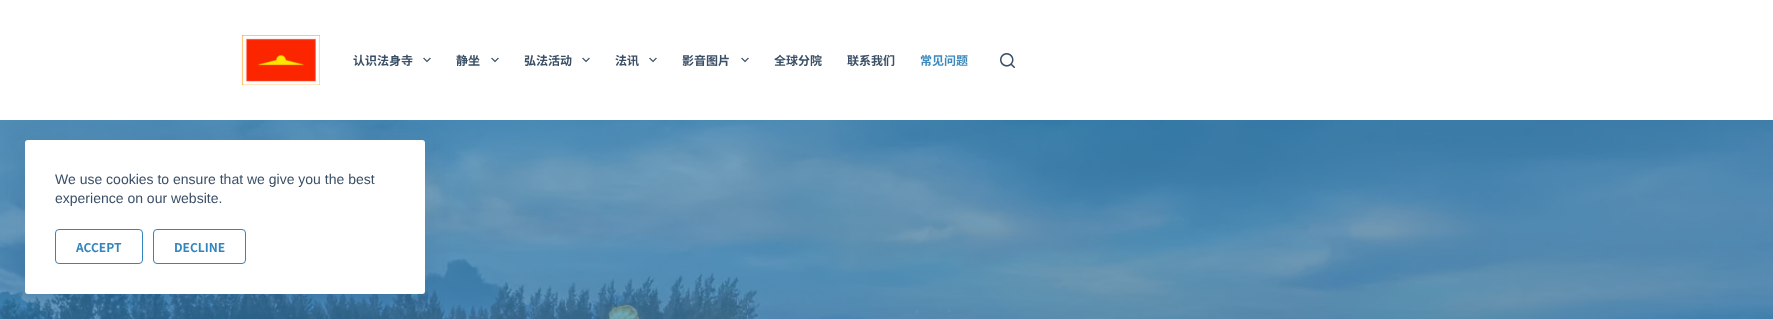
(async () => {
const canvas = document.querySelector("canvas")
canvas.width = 1773
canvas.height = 319
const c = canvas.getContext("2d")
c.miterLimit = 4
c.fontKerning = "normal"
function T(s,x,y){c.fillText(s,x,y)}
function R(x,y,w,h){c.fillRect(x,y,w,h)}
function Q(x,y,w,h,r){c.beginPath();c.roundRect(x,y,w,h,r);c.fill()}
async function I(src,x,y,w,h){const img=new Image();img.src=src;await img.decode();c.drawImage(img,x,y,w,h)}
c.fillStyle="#fff"
R(0,0,1773,319)
await I("1.png",241,35,79,50)
c.font="bold 12px Noto Sans SC"
c.fillStyle="#3a4f66"
T("认识法身寺",353,65)
await I("2.png",423,57,8,6)
T("静坐",456,65)
await I("2.png",491,57,8,6)
T("弘法活动",524,65)
await I("2.png",582,57,8,6)
T("法讯",615,65)
await I("2.png",649,57,8,6)
T("影音图片",682,65)
await I("2.png",741,57,8,6)
T("全球分院",774,65)
T("联系我们",847,65)
c.fillStyle="#3e8abc"
T("常见问题",920,65)
await I("3.png",1000,53,15,15)
await I("4.png",0,120,1773,199)
c.fillStyle="#22386526"
c.filter="blur(15px)"
c.beginPath()
c.rect(30,150,390,144)
c.fill()
c.filter="none"
c.fillStyle="#fff"
Q(25,140,400,154,3)
c.font="14px Liberation Sans"
c.fillStyle="#3a4f66"
T("We use cookies to ensure that we give you the best",55,184)
T("experience on our website.",55,203)
c.beginPath()
c.roundRect(55.5,229.5,87,34,3.5)
c.strokeStyle="#3385bd"
c.stroke()
c.font="bold 12px 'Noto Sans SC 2'"
c.fillStyle="#3385bd"
T("ACCEPT",76,252)
c.beginPath()
c.roundRect(153.5,229.5,92,34,3.5)
c.stroke()
T("DECLINE",174,252)
})()
